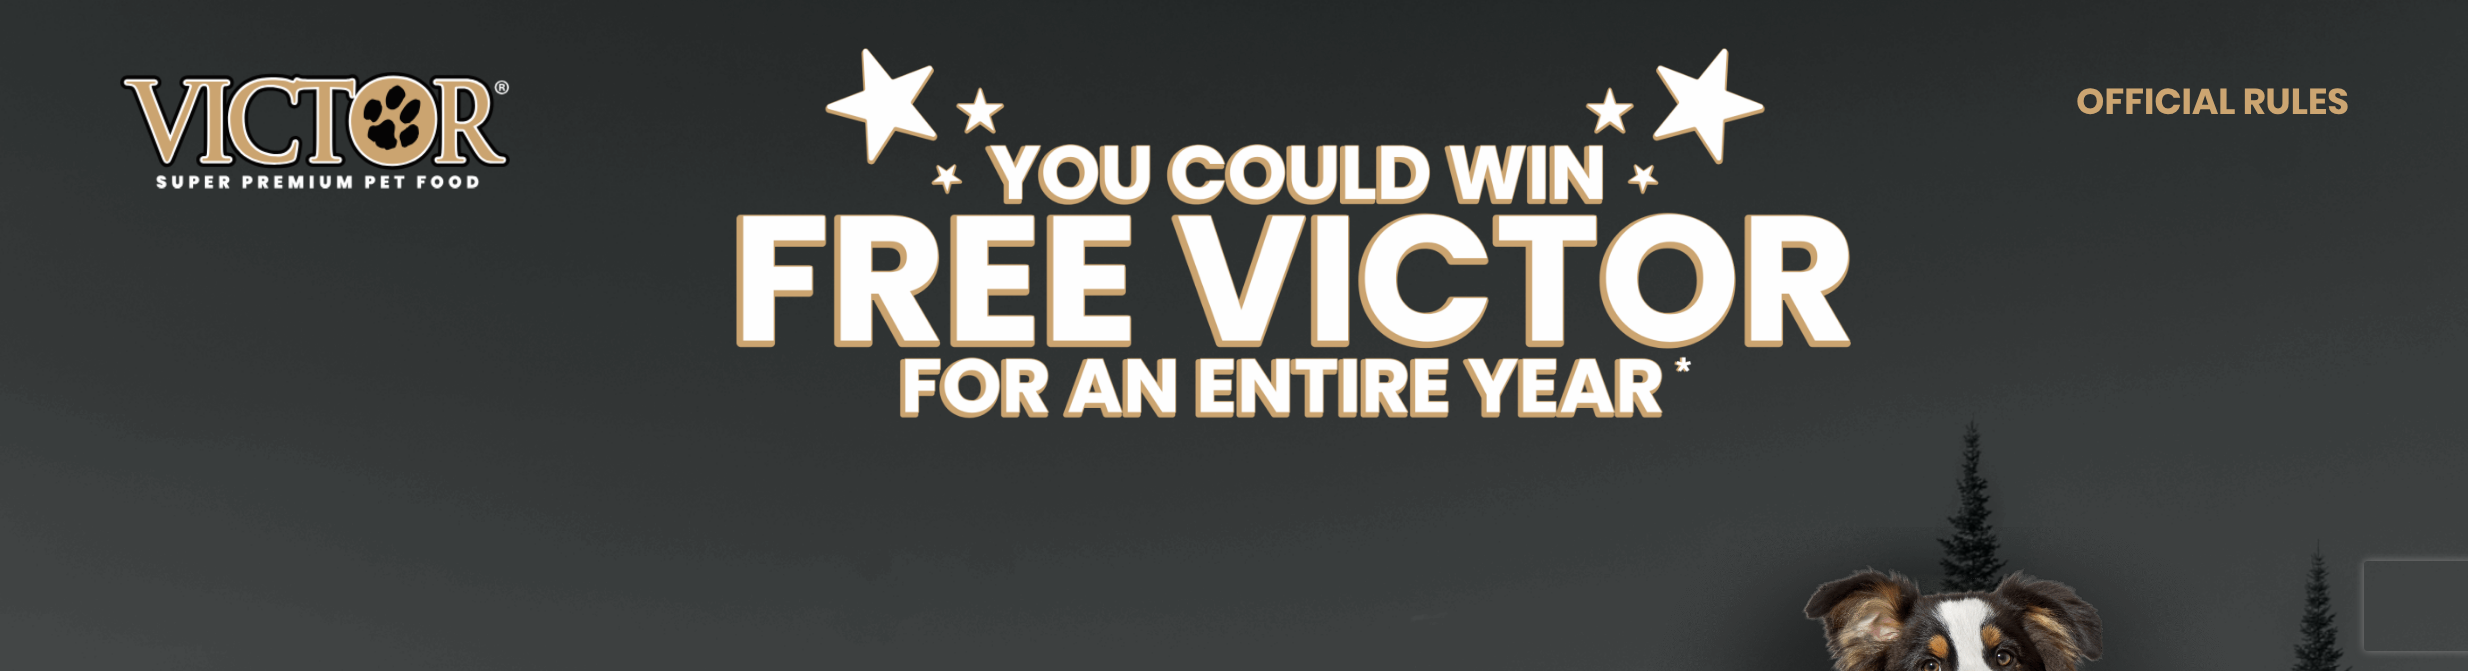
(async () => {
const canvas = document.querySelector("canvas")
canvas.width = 2468
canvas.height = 671
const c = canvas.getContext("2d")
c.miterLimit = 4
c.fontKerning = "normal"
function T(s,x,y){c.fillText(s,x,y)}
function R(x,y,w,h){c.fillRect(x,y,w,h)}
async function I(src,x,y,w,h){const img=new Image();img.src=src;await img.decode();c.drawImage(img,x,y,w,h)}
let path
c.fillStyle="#fff"
R(0,0,2468,671)
await I("1.png",0,0,2468,671)
await I("2.png",120,72,390,117)
await I("3.png",736,48,1115,371)
c.font="bold 36px Poppins"
c.fillStyle="#cca571"
T("OFFICIAL RULES",2076,114)
await I("4.png",1647,527,582,144)
c.save()
path = new Path2D("M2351 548h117v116h-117zm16 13h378c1.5 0 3 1.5 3 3v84c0 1.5-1.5 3-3 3h-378c-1.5 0-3-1.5-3-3v-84c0-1.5 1.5-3 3-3z")
c.clip(path,"evenodd")
c.fillStyle="#808080"
c.filter="blur(4px)"
c.beginPath()
c.roundRect(2364,561,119,90,3)
c.fill()
c.filter="none"
c.restore()
})()
